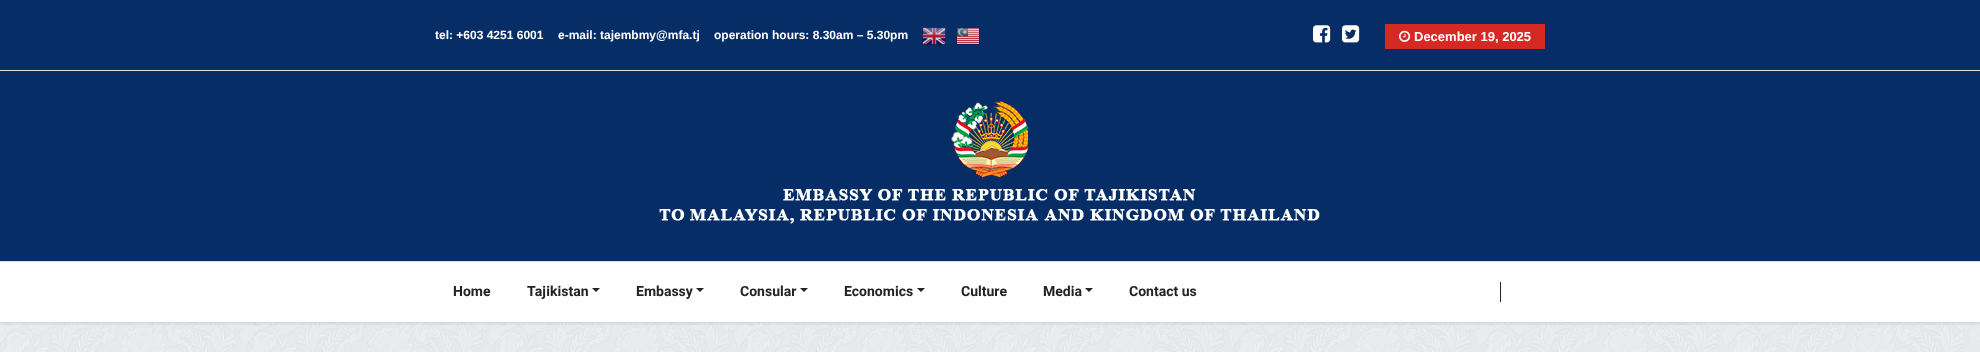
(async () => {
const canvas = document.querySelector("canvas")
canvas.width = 1980
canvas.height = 352
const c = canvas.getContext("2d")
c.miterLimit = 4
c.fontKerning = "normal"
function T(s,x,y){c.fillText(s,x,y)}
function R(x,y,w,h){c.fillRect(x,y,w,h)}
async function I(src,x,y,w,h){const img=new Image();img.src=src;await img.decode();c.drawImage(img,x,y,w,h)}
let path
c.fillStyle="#f0f1f4"
R(0,0,1980,352)
await I("1.png",0,322,1980,30)
c.fillStyle="#072d67"
R(0,0,1980,70)
c.font="bold 12px Arimo"
c.fillStyle="#fff"
T("tel: +603 4251 6001",435,39)
T("e-mail: tajembmy@mfa.tj",558,39)
T("operation hours: 8.30am – 5.30pm",714,39)
await I("2.png",922,27,24,19)
await I("3.png",956,27,24,19)
await I("4.png",1313,25,18,18)
await I("5.png",1342,25,18,18)
c.fillStyle="#d72924"
R(1385,24,160,25)
await I("6.png",1399,30,12,12)
c.font="bold 13px Arimo"
c.fillStyle="#fff"
T("December 19, 2025",1414,41)
c.fillStyle="#072d67"
R(0,71,1980,190)
c.fillStyle="#dee2e6"
R(0,70,1980,1)
await I("7.png",659,101,661,123)
c.fillStyle="#00000014"
c.filter="blur(1px)"
c.beginPath()
c.rect(0,263,1980,61)
c.fill()
c.filter="none"
c.fillStyle="#fff"
R(0,262,1980,60)
c.fillStyle="#ddd"
R(0,261,1980,1)
c.font="bold 14px Heebo"
c.fillStyle="#232323"
T("Home",453,296)
T("Tajikistan",527,296)
path = new Path2D("M592 288h8l-4 4z")
c.fill(path)
T("Embassy",636,296)
path = new Path2D("M696 288h8l-4 4z")
c.fill(path)
T("Consular",740,296)
path = new Path2D("M800 288h8l-4 4z")
c.fill(path)
T("Economics",844,296)
path = new Path2D("M917 288h8l-4 4z")
c.fill(path)
T("Culture",961,296)
T("Media",1043,296)
path = new Path2D("M1085 288h8l-4 4z")
c.fill(path)
T("Contact us",1129,296)
R(1500,282,1,20)
})()
